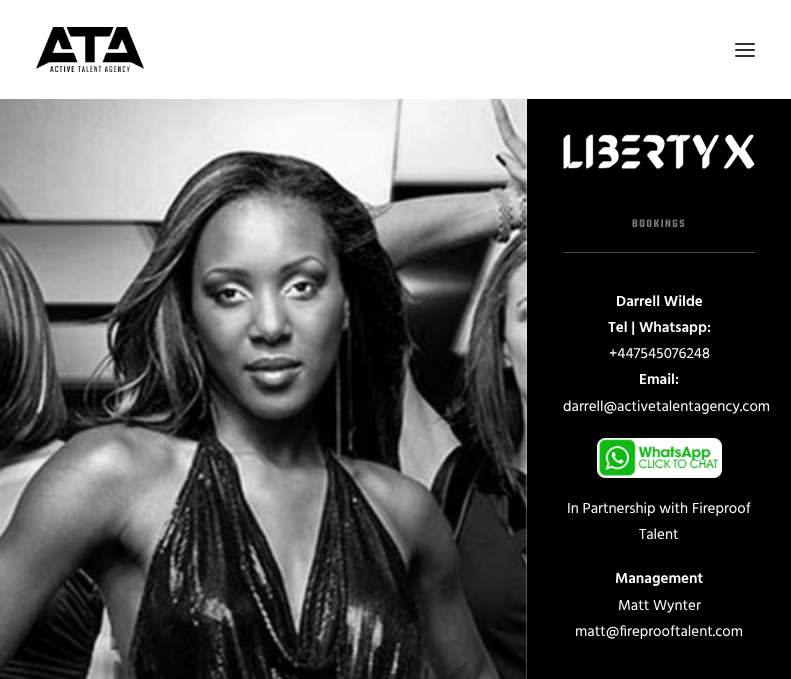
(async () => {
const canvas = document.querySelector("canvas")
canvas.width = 791
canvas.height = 679
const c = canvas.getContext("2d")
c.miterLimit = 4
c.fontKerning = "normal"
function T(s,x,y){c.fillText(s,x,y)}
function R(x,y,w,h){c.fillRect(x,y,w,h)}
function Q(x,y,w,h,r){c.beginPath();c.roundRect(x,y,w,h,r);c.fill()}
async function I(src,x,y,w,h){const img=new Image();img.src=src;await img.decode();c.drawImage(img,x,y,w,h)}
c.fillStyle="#fff"
R(0,0,791,679)
await I("1.png",36,27,108,45)
c.fillStyle="#303133"
Q(735,49,20,2,1)
Q(735,43,20,2,1)
Q(735,55,20,2,1)
await I("2.png",0,99,527,580)
c.fillStyle="#000"
R(527,99,264,580)
await I("3.png",563,134,192,35)
c.fillStyle="#404040"
R(563,252,192,1)
c.letterSpacing="1.5px"
c.font="600 12px Teko"
c.fillStyle="#777"
T("BOOKINGS",632,227)
c.letterSpacing="0px"
c.font="600 15px Hind"
c.fillStyle="#fff"
T("Darrell Wilde",616,306)
T("Tel | Whatsapp:",608,332)
c.font="15px Hind"
T("+447545076248",609,358)
c.font="600 15px Hind"
T("Email:",639,384)
c.font="15px Hind"
T("darrell@activetalentagency.com",563,411)
await I("4.png",597,438,125,40)
T("In Partnership with Fireproof",567,513)
T("Talent",639,539)
c.font="600 15px Hind"
T("Management",615,583)
c.font="15px Hind"
T("Matt Wynter",618,610)
T("matt@fireprooftalent.com",575,636)
})()
